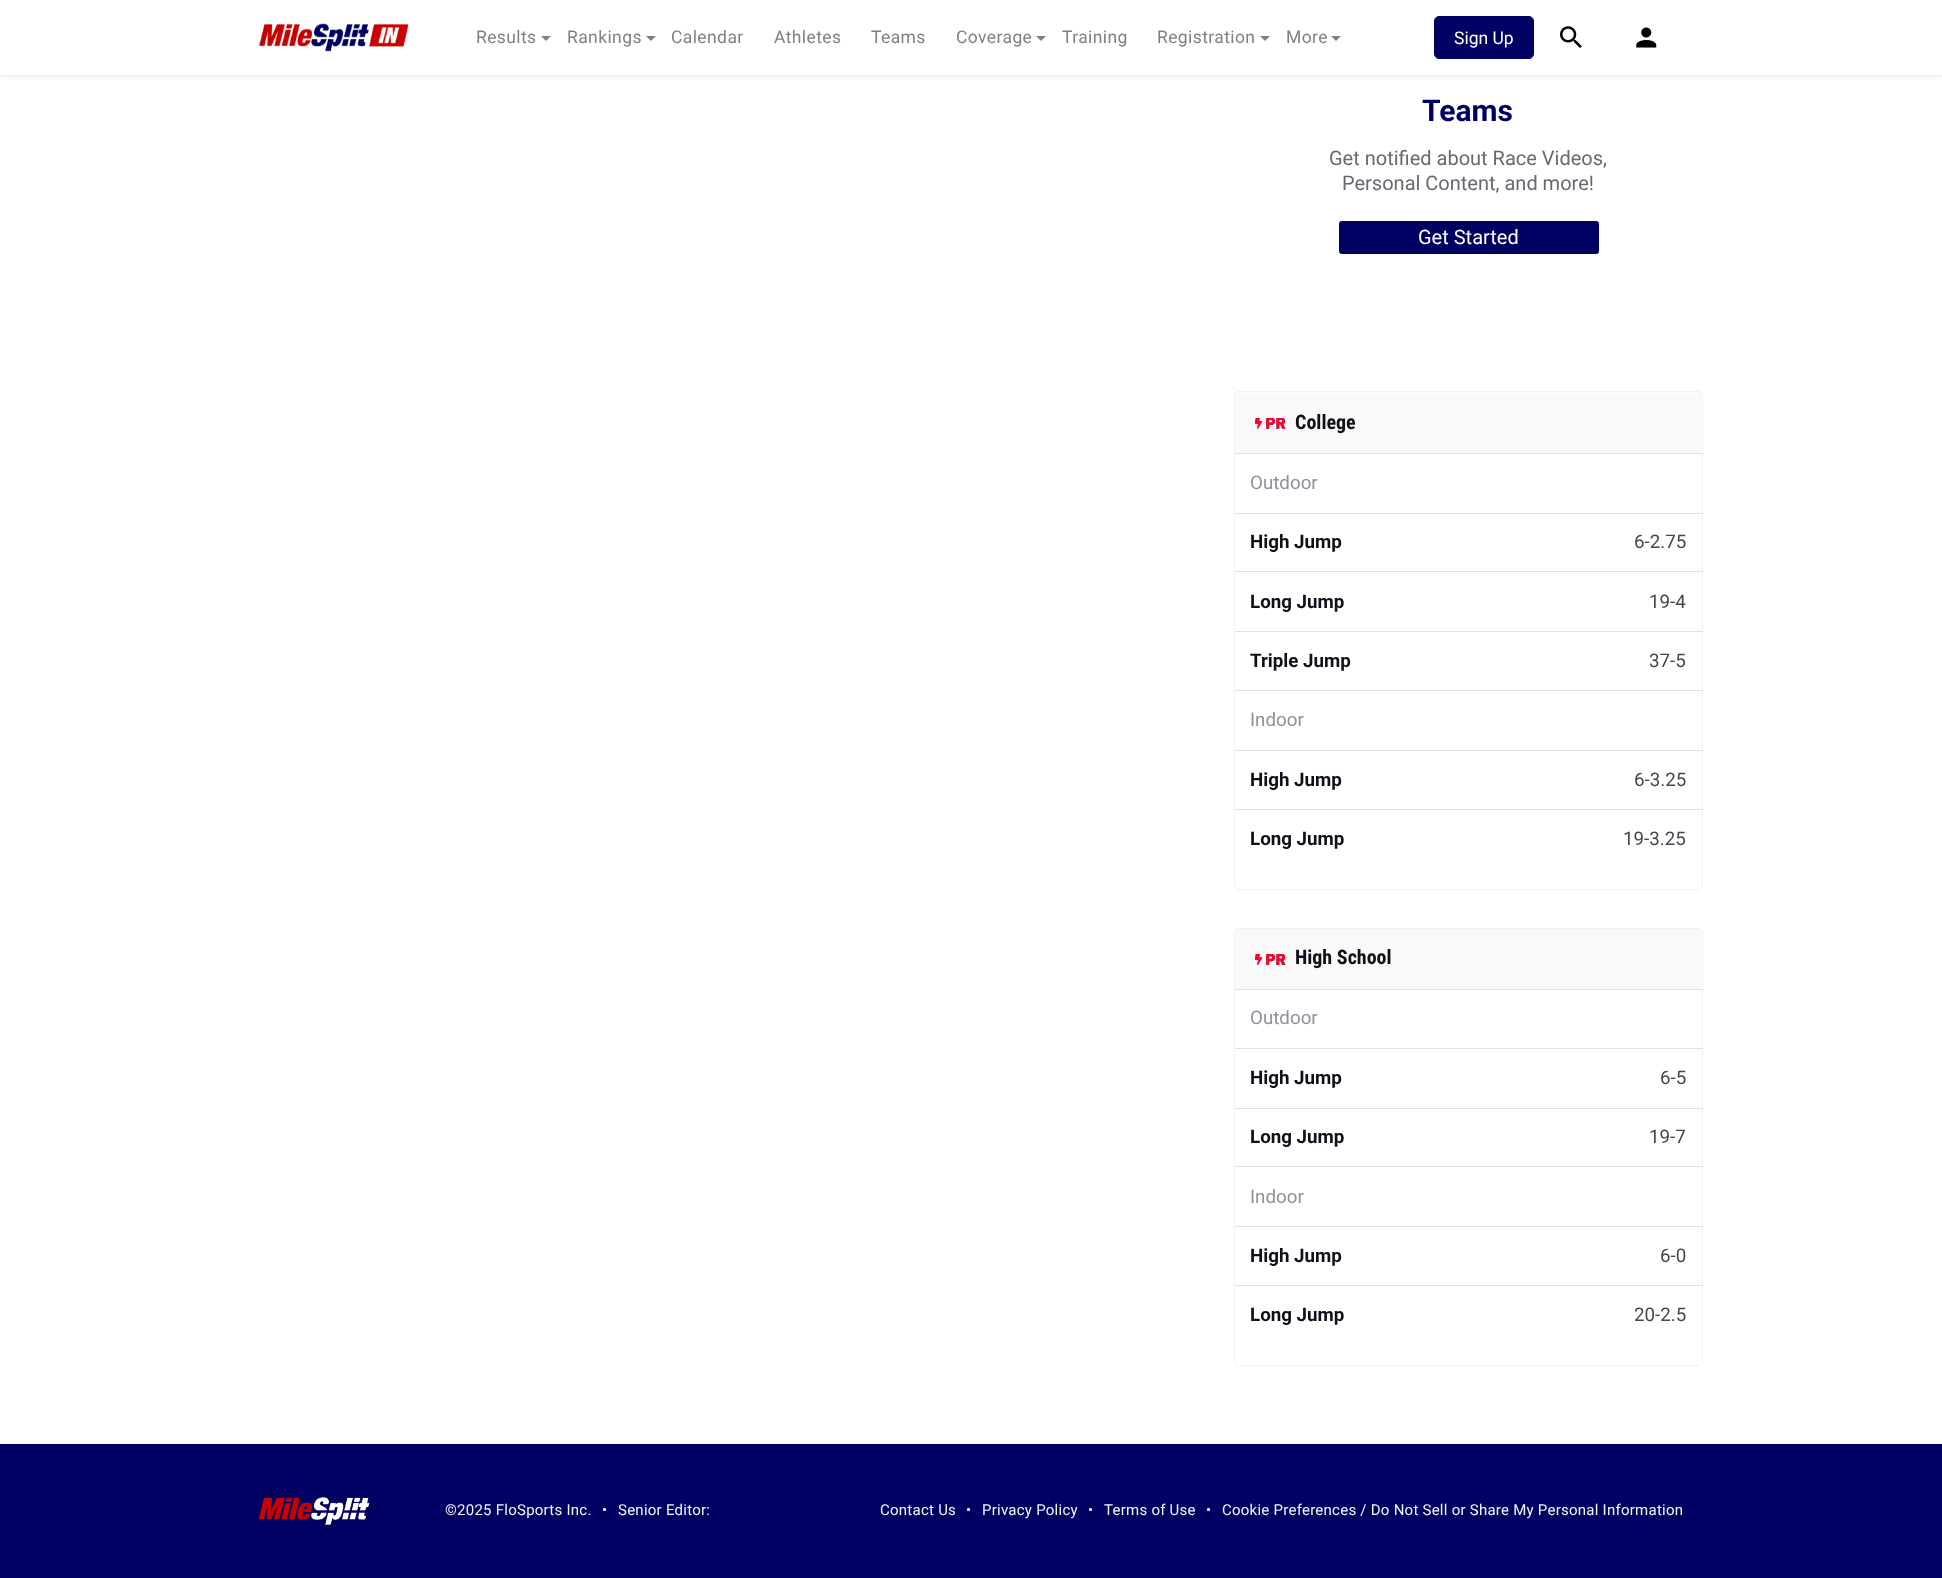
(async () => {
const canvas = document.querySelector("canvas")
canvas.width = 1942
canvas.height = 1578
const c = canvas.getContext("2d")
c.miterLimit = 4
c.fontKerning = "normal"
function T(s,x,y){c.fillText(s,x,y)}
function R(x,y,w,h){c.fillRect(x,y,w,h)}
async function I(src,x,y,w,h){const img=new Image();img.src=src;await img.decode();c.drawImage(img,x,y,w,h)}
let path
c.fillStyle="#fff"
R(0,0,1942,1578)
c.fillStyle="#0000001a"
c.filter="blur(2.5px)"
c.beginPath()
c.rect(0,1,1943,75)
c.fill()
c.filter="none"
c.fillStyle="#fff"
R(0,0,1942,75)
await I("1.png",258,23,151,29)
c.letterSpacing="0.4px"
c.font="17.5px Roboto"
c.fillStyle="#808080"
T("Results",476,43)
path = new Path2D("M541 36h10l-5 5z")
c.fill(path)
T("Rankings",567,43)
path = new Path2D("M646 36h10l-5 5z")
c.fill(path)
T("Calendar",671,43)
T("Athletes",774,43)
T("Teams",871,43)
T("Coverage",956,43)
path = new Path2D("M1036 36h10l-5 5z")
c.fill(path)
T("Training",1062,43)
T("Registration",1157,43)
path = new Path2D("M1260 36h10l-5 5z")
c.fill(path)
T("More",1286,43)
path = new Path2D("M1331 36h10l-5 5z")
c.fill(path)
c.fillStyle="#000062"
c.beginPath()
c.roundRect(1434.5,16.5,99,42,4.5)
c.fill()
c.strokeStyle="#000062"
c.stroke()
c.letterSpacing="0px"
c.fillStyle="#fff"
T("Sign Up",1454,44)
await I("2.png",1560,26,22,22)
await I("3.png",1636,27,21,21)
c.font="bold 30px Roboto"
c.fillStyle="#000062"
T("Teams",1422,121)
c.font="20px Roboto"
c.fillStyle="#676973"
T("Get notified about Race Videos,",1329,165)
T("Personal Content, and more!",1342,190)
c.fillStyle="#000062"
c.beginPath()
c.roundRect(1339.5,221.5,259,32,2)
c.fill()
c.stroke()
c.fillStyle="#fff"
T("Get Started",1418,244)
c.beginPath()
c.roundRect(1234.5,391.5,468,498,4.5)
c.strokeStyle="#f1f1f1"
c.stroke()
c.fillStyle="#f9f9f9"
R(1235,393,466,60)
await I("4.png",1255,418,31,11)
c.font="bold 20px Roboto Condensed"
c.fillStyle="#0f1019"
T("College",1295,429)
c.fillStyle="#dee2e6"
R(1235,453,468,1)
c.font="18.75px Roboto"
c.fillStyle="#8e909e"
T("Outdoor",1250,489)
c.font="bold 18.75px Roboto"
c.fillStyle="#0f1019"
T("High Jump",1250,548)
c.fillStyle="#dee2e6"
R(1235,513,468,1)
c.font="18.75px Roboto"
c.fillStyle="#454650"
T("6-2.75",1634,548)
c.font="bold 18.75px Roboto"
c.fillStyle="#0f1019"
T("Long Jump",1250,608)
c.fillStyle="#dee2e6"
R(1235,571,468,1)
c.font="18.75px Roboto"
c.fillStyle="#454650"
T("19-4",1649,608)
c.font="bold 18.75px Roboto"
c.fillStyle="#0f1019"
T("Triple Jump",1250,667)
c.fillStyle="#dee2e6"
R(1235,631,468,1)
c.font="18.75px Roboto"
c.fillStyle="#454650"
T("37-5",1649,667)
c.fillStyle="#dee2e6"
R(1235,690,468,1)
c.fillStyle="#8e909e"
T("Indoor",1250,726)
c.font="bold 18.75px Roboto"
c.fillStyle="#0f1019"
T("High Jump",1250,786)
c.fillStyle="#dee2e6"
R(1235,750,468,1)
c.font="18.75px Roboto"
c.fillStyle="#454650"
T("6-3.25",1634,786)
c.font="bold 18.75px Roboto"
c.fillStyle="#0f1019"
T("Long Jump",1250,845)
c.fillStyle="#dee2e6"
R(1235,809,468,1)
c.font="18.75px Roboto"
c.fillStyle="#454650"
T("19-3.25",1623,845)
c.beginPath()
c.roundRect(1234.5,928.5,468,437,4.5)
c.stroke()
c.fillStyle="#f9f9f9"
R(1235,929,466,60)
await I("5.png",1255,954,31,11)
c.font="bold 20px Roboto Condensed"
c.fillStyle="#0f1019"
T("High School",1295,964)
c.fillStyle="#dee2e6"
R(1235,989,468,1)
c.font="18.75px Roboto"
c.fillStyle="#8e909e"
T("Outdoor",1250,1024)
c.font="bold 18.75px Roboto"
c.fillStyle="#0f1019"
T("High Jump",1250,1084)
c.fillStyle="#dee2e6"
R(1235,1048,468,1)
c.font="18.75px Roboto"
c.fillStyle="#454650"
T("6-5",1660,1084)
c.font="bold 18.75px Roboto"
c.fillStyle="#0f1019"
T("Long Jump",1250,1143)
c.fillStyle="#dee2e6"
R(1235,1108,468,1)
c.font="18.75px Roboto"
c.fillStyle="#454650"
T("19-7",1649,1143)
c.fillStyle="#dee2e6"
R(1235,1166,468,1)
c.fillStyle="#8e909e"
T("Indoor",1250,1203)
c.font="bold 18.75px Roboto"
c.fillStyle="#0f1019"
T("High Jump",1250,1262)
c.fillStyle="#dee2e6"
R(1235,1226,468,1)
c.font="18.75px Roboto"
c.fillStyle="#454650"
T("6-0",1660,1262)
c.font="bold 18.75px Roboto"
c.fillStyle="#0f1019"
T("Long Jump",1250,1321)
c.fillStyle="#dee2e6"
R(1235,1285,468,1)
c.font="18.75px Roboto"
c.fillStyle="#454650"
T("20-2.5",1634,1321)
c.fillStyle="#000062"
R(0,1444,1942,134)
await I("6.png",258,1497,112,28)
c.letterSpacing="0.25px"
c.font="15px Roboto"
c.fillStyle="#f4f4f4"
T("©2025 FloSports Inc.",445,1515)
T("•",602,1515)
T("Senior Editor:",618,1515)
T("Contact Us",880,1515)
T("•",966,1515)
T("Privacy Policy",982,1515)
T("•",1088,1515)
T("Terms of Use",1104,1515)
T("•",1206,1515)
T("Cookie Preferences / Do Not Sell or Share My Personal Information",1222,1515)
})()
